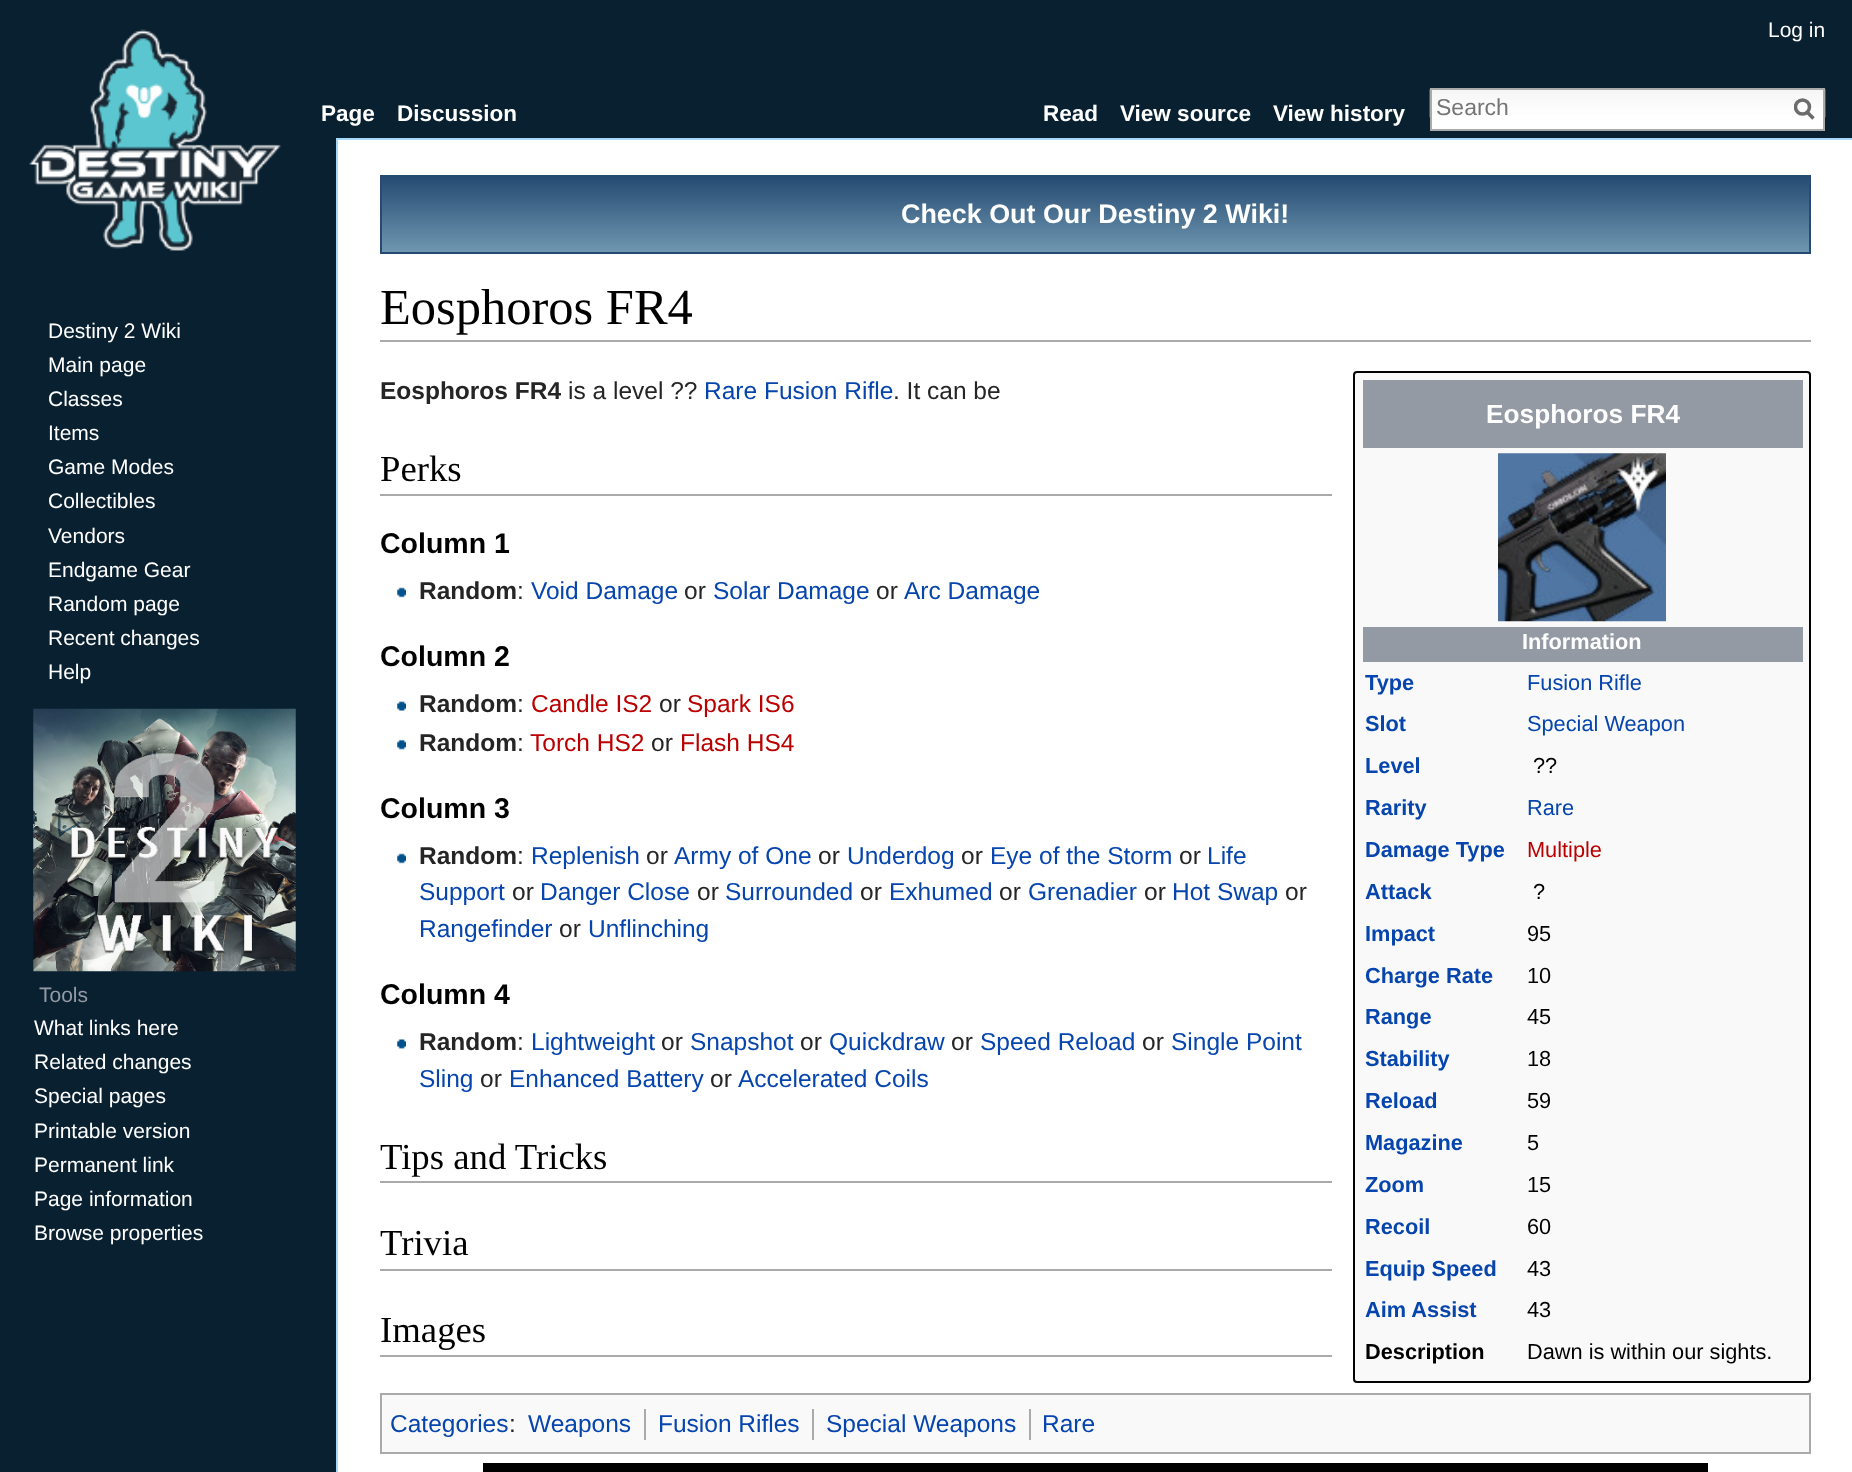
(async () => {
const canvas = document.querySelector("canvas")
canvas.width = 1852
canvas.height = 1472
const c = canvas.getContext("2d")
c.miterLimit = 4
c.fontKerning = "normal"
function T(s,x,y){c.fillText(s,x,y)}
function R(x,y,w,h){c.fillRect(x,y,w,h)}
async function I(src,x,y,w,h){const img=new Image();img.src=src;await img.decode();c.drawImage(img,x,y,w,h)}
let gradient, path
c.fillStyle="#092030"
R(0,0,1852,1472)
c.font="21px Liberation Sans"
c.fillStyle="#fff"
T("Log in",1768,37)
c.font="bold 22.5px Liberation Sans"
T("Page",321,121)
T("Discussion",397,121)
T("Read",1043,121)
T("View source",1120,121)
T("View history",1273,121)
R(1432,117,391,12)
await I("1.png",1429,89,397,29)
c.strokeStyle="#aaa"
c.lineWidth=2
c.strokeRect(1431,89,393,41)
c.font="23px Liberation Sans"
c.fillStyle="#757575"
T("Search",1436,115)
path = new Path2D("M1813.5 118.5l-7-7")
c.strokeStyle="#6c6c6c"
c.lineWidth=3.5
c.stroke(path)
c.save()
c.beginPath()
c.rect(1794,98,21,23)
c.clip()
c.beginPath()
c.arc(1802.5,107,7,0,7)
c.stroke()
c.restore()
await I("2.png",29,29,252,222)
c.font="21px Liberation Sans"
c.fillStyle="#fff"
T("Destiny 2 Wiki",48,338)
T("Main page",48,372)
T("Classes",48,406)
T("Items",48,440)
T("Game Modes",48,474)
T("Collectibles",48,508)
T("Vendors",48,543)
T("Endgame Gear",48,577)
T("Random page",48,611)
T("Recent changes",48,645)
T("Help",48,679)
await I("3.png",33,708,263,264)
c.fillStyle="#939aa4"
T("Tools",39,1002)
c.fillStyle="#fff"
T("What links here",34,1035)
T("Related changes",34,1069)
T("Special pages",34,1103)
T("Printable version",34,1138)
T("Permanent link",34,1172)
T("Page information",34,1206)
T("Browse properties",34,1240)
R(338,140,1514,1332)
c.fillStyle="#a7d7f9"
R(336,138,1516,2)
R(336,138,2,1334)
gradient = c.createLinearGradient(1096,177,1096,252)
gradient.addColorStop(0,"#254b72")
gradient.addColorStop(1,"#6f97b0")
c.fillStyle = gradient
R(382,177,1427,75)
c.strokeStyle="#254b72"
c.lineWidth=2
c.strokeRect(381,176,1429,77)
c.font="bold 26.9px Liberation Sans"
c.fillStyle="#fff"
T("Check Out Our Destiny 2 Wiki!",901,223)
c.fillStyle="#aaa"
R(380,340,1431,2)
c.font="50.5px Liberation Serif"
c.fillStyle="#000"
T("Eosphoros FR4",380,324)
c.font="bold 24.5px Liberation Sans"
c.fillStyle="#252525"
T("Eosphoros FR4",380,399)
c.font="24.5px Liberation Sans"
T("is a level ??",568,399)
c.fillStyle="#0645ad"
T("Rare Fusion Rifle",704,399)
c.fillStyle="#252525"
T(". It can be",893,399)
c.fillStyle="#aaa"
R(380,494,952,2)
c.font="36.75px Liberation Serif"
c.fillStyle="#000"
T("Perks",380,481)
c.fillStyle="#f9f9f9"
c.beginPath()
c.roundRect(1354,372,456,1010,3)
c.fill()
c.strokeStyle="#020202"
c.stroke()
c.fillStyle="#939aa4"
R(1363,380,440,68)
c.font="bold 26.25px Liberation Sans"
c.fillStyle="#fff"
T("Eosphoros FR4",1486,423)
await I("4.png",1498,453,168,169)
c.fillStyle="#939aa4"
R(1363,627,440,35)
c.font="bold 21.75px Liberation Sans"
c.fillStyle="#fff"
T("Information",1522,649)
c.fillStyle="#0645ad"
T("Type",1365,690)
c.font="21.75px Liberation Sans"
T("Fusion Rifle",1527,690)
c.font="bold 21.75px Liberation Sans"
T("Slot",1365,731)
c.font="21.75px Liberation Sans"
T("Special Weapon",1527,731)
c.font="bold 21.75px Liberation Sans"
T("Level",1365,773)
c.font="21.75px Liberation Sans"
c.fillStyle="#000"
T("??",1533,773)
c.font="bold 21.75px Liberation Sans"
c.fillStyle="#0645ad"
T("Rarity",1365,815)
c.font="21.75px Liberation Sans"
T("Rare",1527,815)
c.font="bold 21.75px Liberation Sans"
T("Damage Type",1365,857)
c.font="21.75px Liberation Sans"
c.fillStyle="#ba0000"
T("Multiple",1527,857)
c.font="bold 21.75px Liberation Sans"
c.fillStyle="#0645ad"
T("Attack",1365,899)
c.font="21.75px Liberation Sans"
c.fillStyle="#000"
T("?",1533,899)
c.font="bold 21.75px Liberation Sans"
c.fillStyle="#0645ad"
T("Impact",1365,941)
c.font="21.75px Liberation Sans"
c.fillStyle="#000"
T("95",1527,941)
c.font="bold 21.75px Liberation Sans"
c.fillStyle="#0645ad"
T("Charge Rate",1365,983)
c.font="21.75px Liberation Sans"
c.fillStyle="#000"
T("10",1527,983)
c.font="bold 21.75px Liberation Sans"
c.fillStyle="#0645ad"
T("Range",1365,1024)
c.font="21.75px Liberation Sans"
c.fillStyle="#000"
T("45",1527,1024)
c.font="bold 21.75px Liberation Sans"
c.fillStyle="#0645ad"
T("Stability",1365,1066)
c.font="21.75px Liberation Sans"
c.fillStyle="#000"
T("18",1527,1066)
c.font="bold 21.75px Liberation Sans"
c.fillStyle="#0645ad"
T("Reload",1365,1108)
c.font="21.75px Liberation Sans"
c.fillStyle="#000"
T("59",1527,1108)
c.font="bold 21.75px Liberation Sans"
c.fillStyle="#0645ad"
T("Magazine",1365,1150)
c.font="21.75px Liberation Sans"
c.fillStyle="#000"
T("5",1527,1150)
c.font="bold 21.75px Liberation Sans"
c.fillStyle="#0645ad"
T("Zoom",1365,1192)
c.font="21.75px Liberation Sans"
c.fillStyle="#000"
T("15",1527,1192)
c.font="bold 21.75px Liberation Sans"
c.fillStyle="#0645ad"
T("Recoil",1365,1234)
c.font="21.75px Liberation Sans"
c.fillStyle="#000"
T("60",1527,1234)
c.font="bold 21.75px Liberation Sans"
c.fillStyle="#0645ad"
T("Equip Speed",1365,1276)
c.font="21.75px Liberation Sans"
c.fillStyle="#000"
T("43",1527,1276)
c.font="bold 21.75px Liberation Sans"
c.fillStyle="#0645ad"
T("Aim Assist",1365,1317)
c.font="21.75px Liberation Sans"
c.fillStyle="#000"
T("43",1527,1317)
c.font="bold 21.75px Liberation Sans"
T("Description",1365,1359)
c.font="21.75px Liberation Sans"
T("Dawn is within our sights.",1527,1359)
c.font="bold 28.5px Liberation Sans"
T("Column 1",380,553)
await I("5.png",397,587,9,11)
c.font="bold 24.5px Liberation Sans"
c.fillStyle="#252525"
T("Random",419,599)
c.font="24.5px Liberation Sans"
T(":",517,599)
c.fillStyle="#0645ad"
T("Void Damage",531,599)
c.fillStyle="#252525"
T("or",684,599)
c.fillStyle="#0645ad"
T("Solar Damage",713,599)
c.fillStyle="#252525"
T("or",876,599)
c.fillStyle="#0645ad"
T("Arc Damage",904,599)
c.font="bold 28.5px Liberation Sans"
c.fillStyle="#000"
T("Column 2",380,666)
await I("6.png",397,701,9,10)
c.font="bold 24.5px Liberation Sans"
c.fillStyle="#252525"
T("Random",419,712)
c.font="24.5px Liberation Sans"
T(":",517,712)
c.fillStyle="#ba0000"
T("Candle IS2",531,712)
c.fillStyle="#252525"
T("or",659,712)
c.fillStyle="#ba0000"
T("Spark IS6",687,712)
await I("7.png",397,739,9,11)
c.font="bold 24.5px Liberation Sans"
c.fillStyle="#252525"
T("Random",419,751)
c.font="24.5px Liberation Sans"
T(":",517,751)
c.fillStyle="#ba0000"
T("Torch HS2",530,751)
c.fillStyle="#252525"
T("or",651,751)
c.fillStyle="#ba0000"
T("Flash HS4",680,751)
c.font="bold 28.5px Liberation Sans"
c.fillStyle="#000"
T("Column 3",380,818)
await I("5.png",397,853,9,11)
c.font="bold 24.5px Liberation Sans"
c.fillStyle="#252525"
T("Random",419,864)
c.font="24.5px Liberation Sans"
T(":",517,864)
c.fillStyle="#0645ad"
T("Replenish",531,864)
c.fillStyle="#252525"
T("or",646,864)
c.fillStyle="#0645ad"
T("Army of One",674,864)
c.fillStyle="#252525"
T("or",818,864)
c.fillStyle="#0645ad"
T("Underdog",847,864)
c.fillStyle="#252525"
T("or",961,864)
c.fillStyle="#0645ad"
T("Eye of the Storm",990,864)
c.fillStyle="#252525"
T("or",1179,864)
c.fillStyle="#0645ad"
T("Life",1207,864)
T("Support",419,900)
c.fillStyle="#252525"
T("or",512,900)
c.fillStyle="#0645ad"
T("Danger Close",540,900)
c.fillStyle="#252525"
T("or",697,900)
c.fillStyle="#0645ad"
T("Surrounded",725,900)
c.fillStyle="#252525"
T("or",860,900)
c.fillStyle="#0645ad"
T("Exhumed",889,900)
c.fillStyle="#252525"
T("or",999,900)
c.fillStyle="#0645ad"
T("Grenadier",1028,900)
c.fillStyle="#252525"
T("or",1144,900)
c.fillStyle="#0645ad"
T("Hot Swap",1172,900)
c.fillStyle="#252525"
T("or",1285,900)
c.fillStyle="#0645ad"
T("Rangefinder",419,937)
c.fillStyle="#252525"
T("or",559,937)
c.fillStyle="#0645ad"
T("Unflinching",588,937)
c.font="bold 28.5px Liberation Sans"
c.fillStyle="#000"
T("Column 4",380,1004)
await I("8.png",397,1039,9,10)
c.font="bold 24.5px Liberation Sans"
c.fillStyle="#252525"
T("Random",419,1050)
c.font="24.5px Liberation Sans"
T(":",517,1050)
c.fillStyle="#0645ad"
T("Lightweight",531,1050)
c.fillStyle="#252525"
T("or",661,1050)
c.fillStyle="#0645ad"
T("Snapshot",690,1050)
c.fillStyle="#252525"
T("or",800,1050)
c.fillStyle="#0645ad"
T("Quickdraw",829,1050)
c.fillStyle="#252525"
T("or",951,1050)
c.fillStyle="#0645ad"
T("Speed Reload",980,1050)
c.fillStyle="#252525"
T("or",1142,1050)
c.fillStyle="#0645ad"
T("Single Point",1171,1050)
T("Sling",419,1087)
c.fillStyle="#252525"
T("or",480,1087)
c.fillStyle="#0645ad"
T("Enhanced Battery",509,1087)
c.fillStyle="#252525"
T("or",710,1087)
c.fillStyle="#0645ad"
T("Accelerated Coils",738,1087)
c.fillStyle="#aaa"
R(380,1181,952,2)
c.font="36.75px Liberation Serif"
c.fillStyle="#000"
T("Tips and Tricks",380,1169)
c.fillStyle="#aaa"
R(380,1269,952,2)
c.fillStyle="#000"
T("Trivia",380,1255)
c.fillStyle="#aaa"
R(380,1355,952,2)
c.fillStyle="#000"
T("Images",380,1342)
c.fillStyle="#f9f9f9"
c.beginPath()
c.rect(381,1394,1429,59)
c.fill()
c.strokeStyle="#aaa"
c.stroke()
c.font="24.5px Liberation Sans"
c.fillStyle="#0645ad"
T("Categories",390,1432)
c.fillStyle="#252525"
T(":",509,1432)
c.fillStyle="#0645ad"
T("Weapons",528,1432)
c.fillStyle="#aaa"
R(644,1409,2,31)
c.fillStyle="#0645ad"
T("Fusion Rifles",658,1432)
c.fillStyle="#aaa"
R(812,1409,2,31)
c.fillStyle="#0645ad"
T("Special Weapons",826,1432)
c.fillStyle="#aaa"
R(1029,1409,2,31)
c.fillStyle="#0645ad"
T("Rare",1042,1432)
c.fillStyle="#000"
R(483,1463,1225,9)
})()
